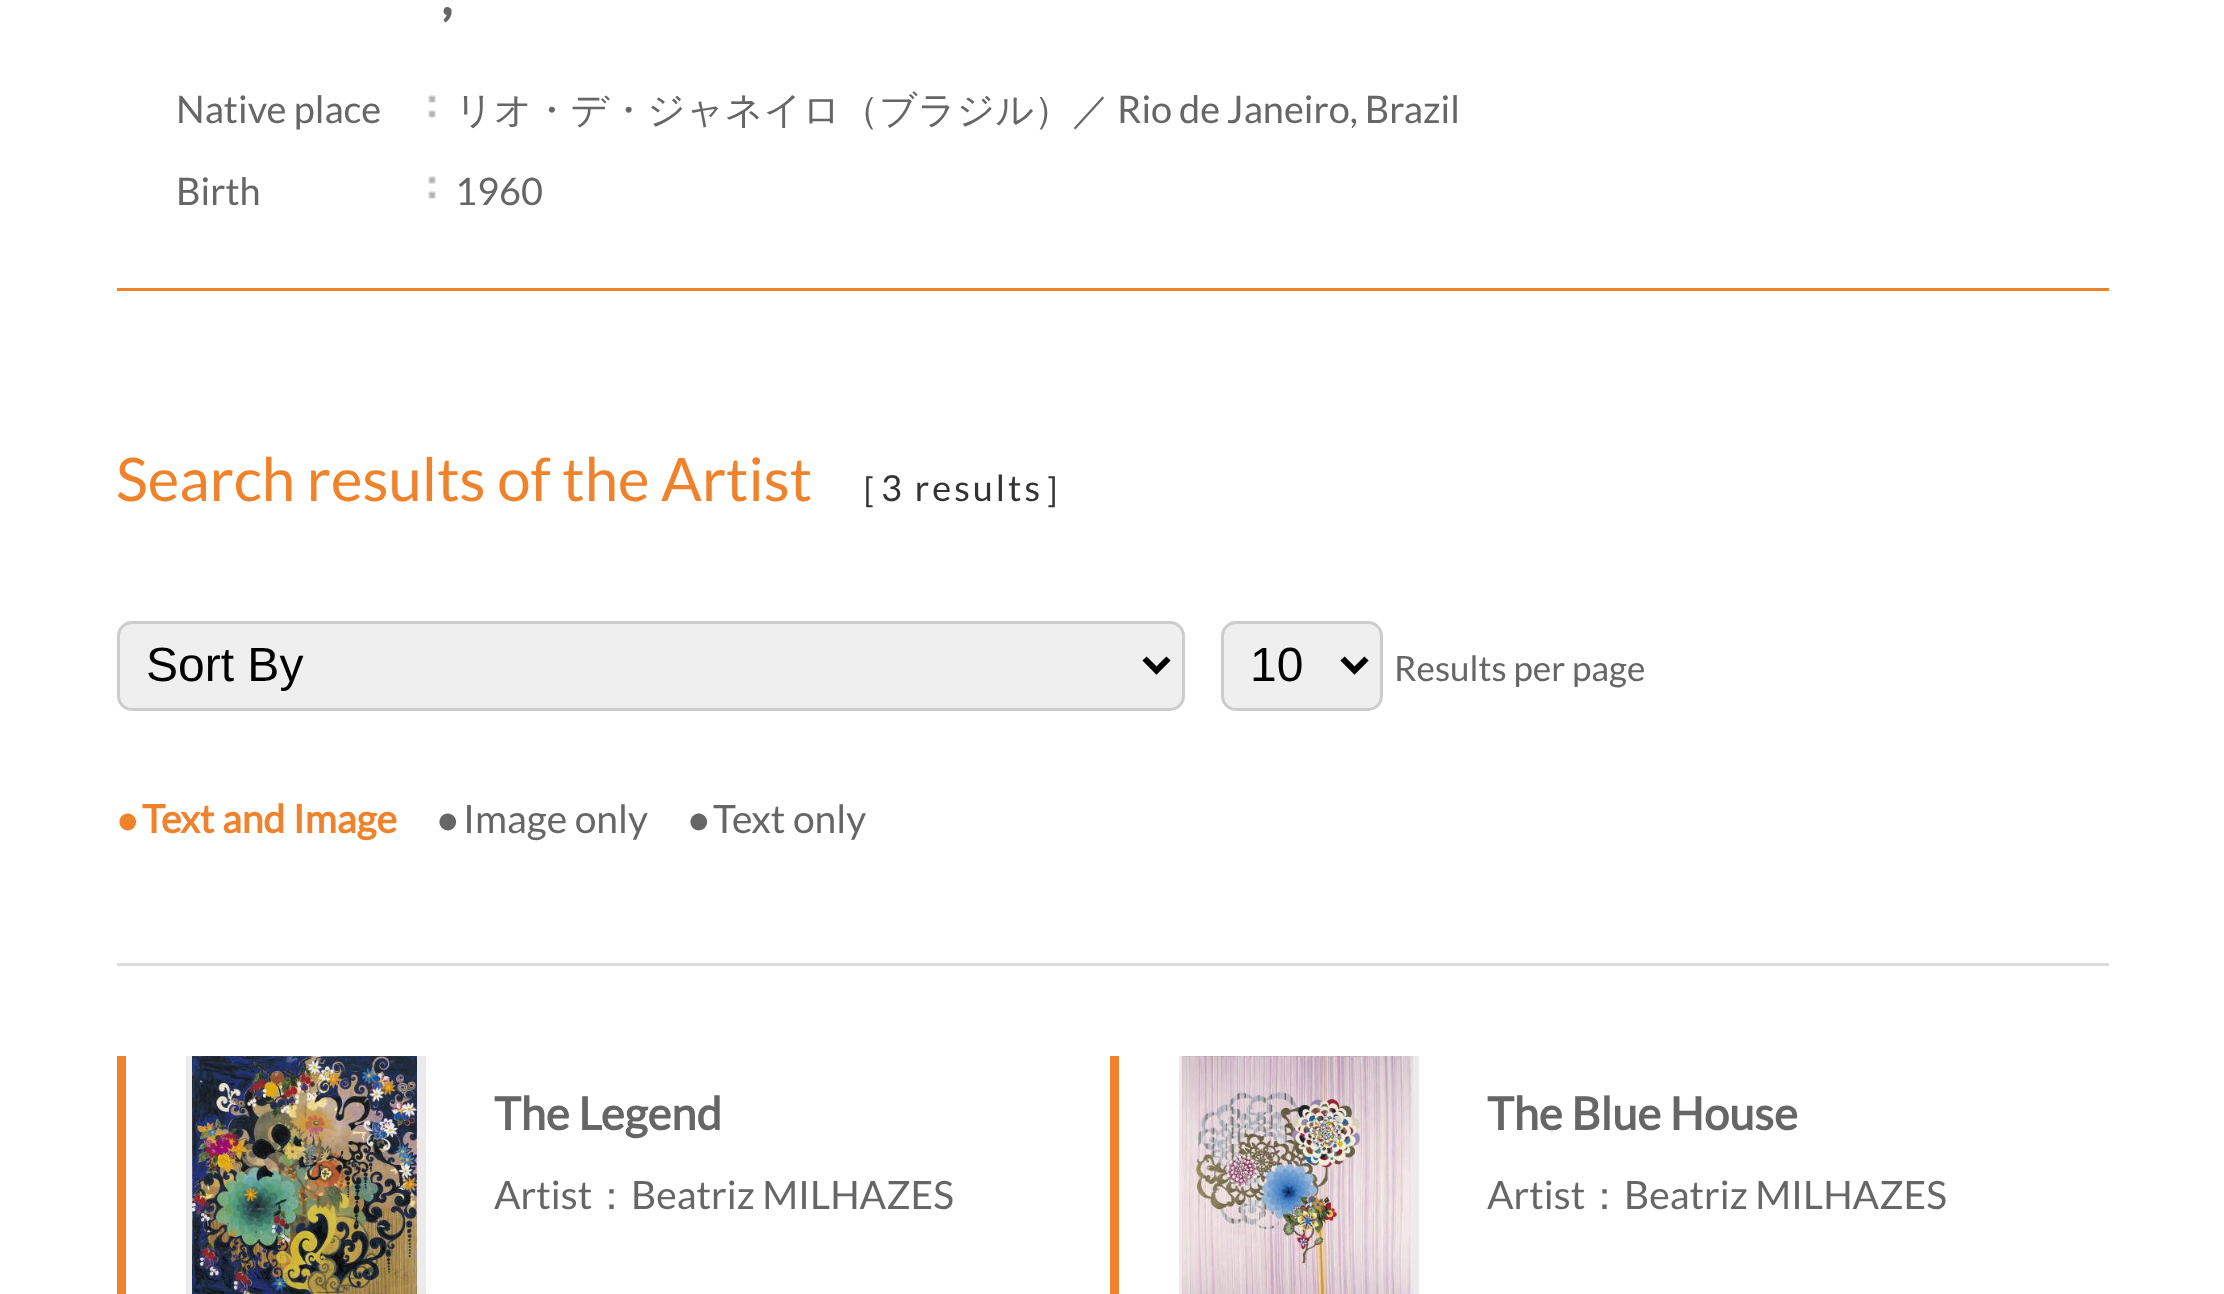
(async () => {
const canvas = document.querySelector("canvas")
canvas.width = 2224
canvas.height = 1294
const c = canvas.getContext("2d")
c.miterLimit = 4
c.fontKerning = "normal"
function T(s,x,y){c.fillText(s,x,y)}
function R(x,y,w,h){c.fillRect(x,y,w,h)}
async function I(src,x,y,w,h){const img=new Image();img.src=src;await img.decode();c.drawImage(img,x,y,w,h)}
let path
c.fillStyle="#fff"
R(0,0,2224,1294)
c.font="bold 54px Lato"
c.fillStyle="#666"
T(",",441,15)
c.font="37.9px Lato"
T("Native place",176,123)
await I("1.png",428,95,8,23)
c.font="500 37.9px WenQuanYi Zen Hei"
T("リオ・デ・ジャネイロ（ブラジル）／",455,123)
c.wordSpacing="-0.5px"
c.font="37.9px Lato"
T("Rio de Janeiro, Brazil",1117,123)
c.wordSpacing="0px"
T("Birth",176,205)
await I("1.png",428,176,8,23)
T("1960",455,205)
c.fillStyle="#ef822b"
R(117,288,1992,3)
c.font="60px Lato"
T("Search results of the Artist",116,501)
c.letterSpacing="3px"
c.font="500 36px WenQuanYi Zen Hei"
c.fillStyle="#333"
T("［",842,501)
c.font="36px Lato"
T("3 results",881,501)
c.font="500 36px WenQuanYi Zen Hei"
T("］",1043,501)
c.fillStyle="#efefef"
c.beginPath()
c.roundRect(118.5,622.5,1065,87,13.5)
c.fill()
c.strokeStyle="#ccc"
c.lineWidth=3
c.stroke()
path = new Path2D("M1144.5 658.5l12 12l12-12")
c.strokeStyle="#000"
c.lineWidth=6
c.stroke(path)
c.letterSpacing="0px"
c.font="48px Liberation Sans"
c.fillStyle="#000"
T("Sort By",146,681)
c.fillStyle="#efefef"
c.beginPath()
c.roundRect(1222.5,622.5,159,87,13.5)
c.fill()
c.strokeStyle="#ccc"
c.lineWidth=3
c.stroke()
path = new Path2D("M1342.5 658.5l12 12l12-12")
c.strokeStyle="#000"
c.lineWidth=6
c.stroke(path)
c.fillStyle="#000"
T("10",1250,681)
c.font="35px Lato"
c.fillStyle="#666"
T("Results per page",1394,681)
c.font="bold 39px Liberation Sans"
c.fillStyle="#ef822b"
T("●",116,833)
c.font="bold 39px Lato"
T("Text and Image",142,833)
c.font="39px Liberation Sans"
c.fillStyle="#666"
T("●",436,833)
c.font="39px Lato"
T("Image only",463,833)
c.font="39px Liberation Sans"
T("●",687,833)
c.font="39px Lato"
T("Text only",713,833)
c.fillStyle="#ddd"
R(117,963,1992,3)
c.fillStyle="#ef822b"
R(117,1056,9,238)
c.fillStyle="#ebebeb"
R(186,1056,240,238)
await I("2.png",192,1056,225,238)
c.font="bold 45.25px Lato"
c.fillStyle="#666"
T("The Legend",494,1130)
c.font="39px Lato"
T("Artist",494,1209)
c.font="500 39px WenQuanYi Zen Hei"
T("：",592,1209)
c.font="39px Lato"
T("Beatriz MILHAZES",631,1209)
c.fillStyle="#ef822b"
R(1110,1056,9,238)
c.fillStyle="#ebebeb"
R(1179,1056,240,238)
await I("3.png",1182,1056,231,238)
c.font="bold 45.25px Lato"
c.fillStyle="#666"
T("The Blue House",1487,1130)
c.font="39px Lato"
T("Artist",1487,1209)
c.font="500 39px WenQuanYi Zen Hei"
T("：",1585,1209)
c.font="39px Lato"
T("Beatriz MILHAZES",1624,1209)
})()
